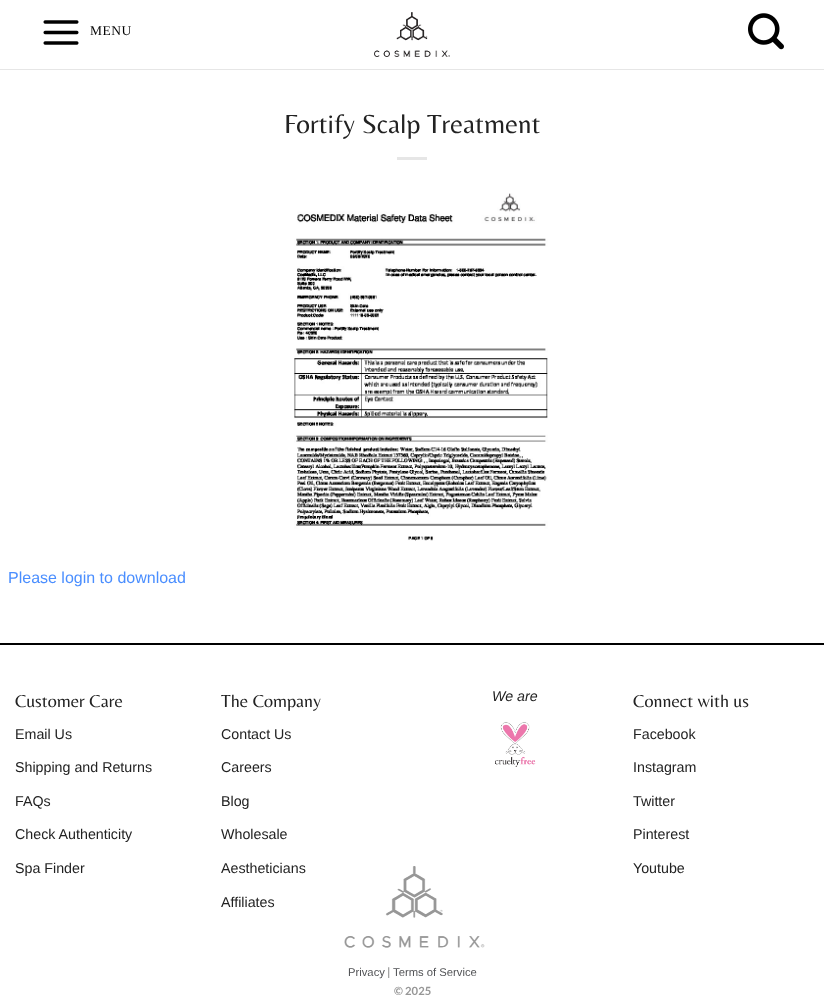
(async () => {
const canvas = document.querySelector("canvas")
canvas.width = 824
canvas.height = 996
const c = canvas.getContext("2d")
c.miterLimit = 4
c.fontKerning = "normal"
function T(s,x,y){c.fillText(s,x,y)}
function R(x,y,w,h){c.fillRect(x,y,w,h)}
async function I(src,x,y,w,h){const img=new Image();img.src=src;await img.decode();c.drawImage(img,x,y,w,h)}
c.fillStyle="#fff"
R(0,0,824,996)
c.fillStyle="#e6e6e6"
R(0,69,824,1)
await I("1.png",43,20,36,25)
c.letterSpacing="0.5px"
c.font="13.5px Liberation Serif"
c.fillStyle="#000"
T("MENU",90,35)
await I("2.png",374,12,76,45)
await I("3.png",748,13,36,37)
c.letterSpacing="0px"
c.font="27.25px Belleza"
c.fillStyle="#222"
T("Fortify Scalp Treatment",284,133)
c.fillStyle="#e6e6e6"
R(397,157,30,3)
await I("4.png",294,193,254,348)
c.font="16px Liberation Sans"
c.fillStyle="#4a8eff"
T("Please login to download",8,583)
c.fillStyle="#000"
R(0,643,824,2)
c.font="18px Belleza"
c.fillStyle="#222"
T("Customer Care",15,707)
c.font="14.25px Liberation Sans"
T("Email Us",15,739)
T("Shipping and Returns",15,772)
T("FAQs",15,806)
T("Check Authenticity",15,839)
T("Spa Finder",15,873)
c.font="18px Belleza"
T("The Company",221,707)
c.font="14.25px Liberation Sans"
T("Contact Us",221,739)
T("Careers",221,772)
T("Blog",221,806)
T("Wholesale",221,839)
T("Aestheticians",221,873)
T("Affiliates",221,907)
c.font="italic 14.25px Liberation Sans"
T("We are",492,701)
await I("5.png",495,722,41,45)
c.font="18px Belleza"
T("Connect with us",633,707)
c.font="14.25px Liberation Sans"
T("Facebook",633,739)
T("Instagram",633,772)
T("Twitter",633,806)
T("Pinterest",633,839)
T("Youtube",633,873)
await I("6.png",344,866,141,82)
c.font="11.25px Liberation Sans"
c.fillStyle="#515255"
T("Privacy",348,976)
c.font="bold 11.25px Lato"
c.fillStyle="#979797"
T("|",387,976)
c.font="11.25px Liberation Sans"
c.fillStyle="#515255"
T("Terms of Service",393,976)
c.font="bold 11.25px Lato"
c.fillStyle="#979797"
T("© 2025",394,995)
})()
